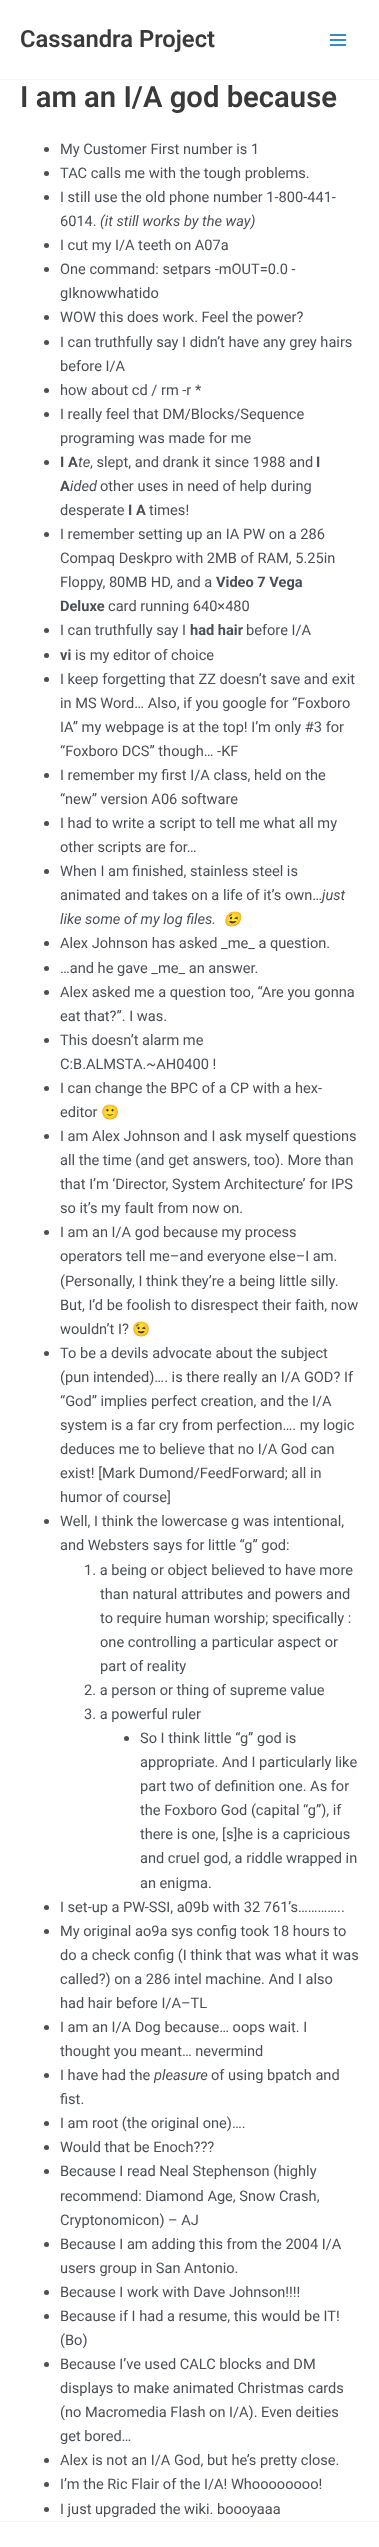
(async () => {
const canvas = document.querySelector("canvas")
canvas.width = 379
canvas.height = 2547
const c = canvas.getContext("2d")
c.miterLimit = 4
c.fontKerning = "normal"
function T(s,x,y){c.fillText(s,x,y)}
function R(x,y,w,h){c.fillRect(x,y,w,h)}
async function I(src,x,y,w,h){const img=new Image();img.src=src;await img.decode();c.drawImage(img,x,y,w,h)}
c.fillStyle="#fff"
R(0,0,379,2547)
c.fillStyle="#f2f5f7"
R(0,79,379,1)
c.font="600 23.75px Roboto"
c.fillStyle="#3a3a3a"
T("Cassandra Project",20,47)
await I("1.png",329,34,18,12)
c.font="600 29.25px Roboto"
T("I am an I/A god because",20,107)
c.fillStyle="#4b4f58"
c.beginPath()
c.arc(46.5,149.5,2.5,0,7)
c.fill()
c.font="14.6px Roboto"
T("My Customer First number is 1",60,154)
c.beginPath()
c.arc(46.5,173.5,2.5,0,7)
c.fill()
T("TAC calls me with the tough problems.",60,178)
c.beginPath()
c.arc(46.5,197.5,2.5,0,7)
c.fill()
T("I still use the old phone number 1-800-441-",60,202)
T("6014.",60,226)
c.font="italic 14.6px Roboto"
T("(it still works by the way)",100,226)
c.beginPath()
c.arc(46.5,245.5,2.5,0,7)
c.fill()
c.font="14.6px Roboto"
T("I cut my I/A teeth on A07a",60,250)
c.beginPath()
c.arc(46.5,269.5,2.5,0,7)
c.fill()
T("One command: setpars -mOUT=0.0 -",60,274)
T("gIknowwhatido",60,298)
c.beginPath()
c.arc(46.5,317.5,2.5,0,7)
c.fill()
T("WOW this does work. Feel the power?",60,322)
c.beginPath()
c.arc(46.5,342.5,2.5,0,7)
c.fill()
T("I can truthfully say I didn’t have any grey hairs",60,347)
T("before I/A",60,371)
c.beginPath()
c.arc(46.5,390.5,2.5,0,7)
c.fill()
T("how about cd / rm -r *",60,395)
c.beginPath()
c.arc(46.5,414.5,2.5,0,7)
c.fill()
T("I really feel that DM/Blocks/Sequence",60,419)
T("programing was made for me",60,443)
c.beginPath()
c.arc(46.5,462.5,2.5,0,7)
c.fill()
c.font="bold 14.6px Roboto"
T("I A",60,467)
c.font="italic 14.6px Roboto"
T("te",78,467)
c.font="14.6px Roboto"
T(", slept, and drank it since 1988 and",90,467)
c.font="bold 14.6px Roboto"
T("I",316,467)
T("A",60,491)
c.font="italic 14.6px Roboto"
T("ided",70,491)
c.font="14.6px Roboto"
T("other uses in need of help during",100,491)
T("desperate",60,515)
c.font="bold 14.6px Roboto"
T("I A",128,515)
c.font="14.6px Roboto"
T("times!",149,515)
c.beginPath()
c.arc(46.5,534.5,2.5,0,7)
c.fill()
T("I remember setting up an IA PW on a 286",60,539)
T("Compaq Deskpro with 2MB of RAM, 5.25in",60,563)
T("Floppy, 80MB HD, and a",60,587)
c.font="bold 14.6px Roboto"
T("Video 7 Vega",216,587)
T("Deluxe",60,611)
c.font="14.6px Roboto"
T("card running 640×480",108,611)
c.beginPath()
c.arc(46.5,630.5,2.5,0,7)
c.fill()
T("I can truthfully say I",60,635)
c.font="bold 14.6px Roboto"
T("had hair",190,635)
c.font="14.6px Roboto"
T("before I/A",246,635)
c.beginPath()
c.arc(46.5,655.5,2.5,0,7)
c.fill()
c.font="bold 14.6px Roboto"
T("vi",60,660)
c.font="14.6px Roboto"
T("is my editor of choice",75,660)
c.beginPath()
c.arc(46.5,679.5,2.5,0,7)
c.fill()
T("I keep forgetting that ZZ doesn’t save and exit",60,684)
T("in MS Word… Also, if you google for “Foxboro",60,708)
T("IA” my webpage is at the top! I’m only #3 for",60,732)
T("“Foxboro DCS” though… -KF",60,756)
c.beginPath()
c.arc(46.5,775.5,2.5,0,7)
c.fill()
T("I remember my first I/A class, held on the",60,780)
T("“new” version A06 software",60,804)
c.beginPath()
c.arc(46.5,823.5,2.5,0,7)
c.fill()
T("I had to write a script to tell me what all my",60,828)
T("other scripts are for…",60,852)
c.beginPath()
c.arc(46.5,871.5,2.5,0,7)
c.fill()
T("When I am finished, stainless steel is",60,876)
T("animated and takes on a life of it’s own…",60,900)
c.font="italic 14.6px Roboto"
T("just",322,900)
T("like some of my log files.",60,924)
c.font="italic 14.6px Noto Color Emoji"
T("😉",223,924)
c.beginPath()
c.arc(46.5,943.5,2.5,0,7)
c.fill()
c.font="14.6px Roboto"
T("Alex Johnson has asked _me_ a question.",60,948)
c.beginPath()
c.arc(46.5,968.5,2.5,0,7)
c.fill()
T("…and he gave _me_ an answer.",60,973)
c.beginPath()
c.arc(46.5,992.5,2.5,0,7)
c.fill()
T("Alex asked me a question too, “Are you gonna",60,997)
T("eat that?”. I was.",60,1021)
c.beginPath()
c.arc(46.5,1040.5,2.5,0,7)
c.fill()
T("This doesn’t alarm me",60,1045)
T("C:B.ALMSTA.~AH0400 !",60,1069)
c.beginPath()
c.arc(46.5,1088.5,2.5,0,7)
c.fill()
T("I can change the BPC of a CP with a hex-",60,1093)
T("editor",60,1117)
c.font="14.6px Noto Color Emoji"
T("🙂",101,1117)
c.beginPath()
c.arc(46.5,1136.5,2.5,0,7)
c.fill()
c.font="14.6px Roboto"
T("I am Alex Johnson and I ask myself questions",60,1141)
T("all the time (and get answers, too). More than",60,1165)
T("that I’m ‘Director, System Architecture’ for IPS",60,1189)
T("so it’s my fault from now on.",60,1213)
c.beginPath()
c.arc(46.5,1232.5,2.5,0,7)
c.fill()
T("I am an I/A god because my process",60,1237)
T("operators tell me–and everyone else–I am.",60,1261)
T("(Personally, I think they’re a being little silly.",60,1286)
T("But, I’d be foolish to disrespect their faith, now",60,1310)
T("wouldn’t I?",60,1334)
c.font="bold 14.6px Noto Color Emoji"
T("😉",132,1334)
c.beginPath()
c.arc(46.5,1353.5,2.5,0,7)
c.fill()
c.font="14.6px Roboto"
T("To be a devils advocate about the subject",60,1358)
T("(pun intended)…. is there really an I/A GOD? If",60,1382)
T("“God” implies perfect creation, and the I/A",60,1406)
T("system is a far cry from perfection…. my logic",60,1430)
T("deduces me to believe that no I/A God can",60,1454)
T("exist! [Mark Dumond/FeedForward; all in",60,1478)
T("humor of course]",60,1502)
c.beginPath()
c.arc(46.5,1521.5,2.5,0,7)
c.fill()
T("Well, I think the lowercase g was intentional,",60,1526)
T("and Websters says for little “g” god:",60,1550)
T("1. a being or object believed to have more",84,1575)
T("than natural attributes and powers and",100,1599)
T("to require human worship; specifically :",100,1623)
T("one controlling a particular aspect or",100,1647)
T("part of reality",100,1671)
T("2. a person or thing of supreme value",84,1695)
T("3. a powerful ruler",84,1719)
c.beginPath()
c.arc(126.5,1738.5,2.5,0,7)
c.fill()
T("So I think little “g” god is",140,1743)
T("appropriate. And I particularly like",140,1767)
T("part two of definition one. As for",140,1791)
T("the Foxboro God (capital “g”), if",140,1815)
T("there is one, [s]he is a capricious",140,1839)
T("and cruel god, a riddle wrapped in",140,1863)
T("an enigma.",140,1888)
c.beginPath()
c.arc(46.5,1907.5,2.5,0,7)
c.fill()
T("I set-up a PW-SSI, a09b with 32 761’s…………..",60,1912)
c.beginPath()
c.arc(46.5,1931.5,2.5,0,7)
c.fill()
T("My original ao9a sys config took 18 hours to",60,1936)
T("do a check config (I think that was what it was",60,1960)
T("called?) on a 286 intel machine. And I also",60,1984)
T("had hair before I/A–TL",60,2008)
c.beginPath()
c.arc(46.5,2027.5,2.5,0,7)
c.fill()
T("I am an I/A Dog because… oops wait. I",60,2032)
T("thought you meant… nevermind",60,2056)
c.beginPath()
c.arc(46.5,2075.5,2.5,0,7)
c.fill()
T("I have had the",60,2080)
c.font="italic 14.6px Roboto"
T("pleasure",154,2080)
c.font="14.6px Roboto"
T("of using bpatch and",211,2080)
T("fist.",60,2104)
c.beginPath()
c.arc(46.5,2123.5,2.5,0,7)
c.fill()
T("I am root (the original one)….",60,2128)
c.beginPath()
c.arc(46.5,2147.5,2.5,0,7)
c.fill()
T("Would that be Enoch???",60,2152)
c.beginPath()
c.arc(46.5,2171.5,2.5,0,7)
c.fill()
T("Because I read Neal Stephenson (highly",60,2176)
T("recommend: Diamond Age, Snow Crash,",60,2201)
T("Cryptonomicon) – AJ",60,2225)
c.beginPath()
c.arc(46.5,2244.5,2.5,0,7)
c.fill()
T("Because I am adding this from the 2004 I/A",60,2249)
T("users group in San Antonio.",60,2273)
c.beginPath()
c.arc(46.5,2292.5,2.5,0,7)
c.fill()
T("Because I work with Dave Johnson!!!!",60,2297)
c.beginPath()
c.arc(46.5,2316.5,2.5,0,7)
c.fill()
T("Because if I had a resume, this would be IT!",60,2321)
T("(Bo)",60,2345)
c.beginPath()
c.arc(46.5,2364.5,2.5,0,7)
c.fill()
T("Because I’ve used CALC blocks and DM",60,2369)
T("displays to make animated Christmas cards",60,2393)
T("(no Macromedia Flash on I/A). Even deities",60,2417)
T("get bored…",60,2441)
c.beginPath()
c.arc(46.5,2460.5,2.5,0,7)
c.fill()
T("Alex is not an I/A God, but he’s pretty close.",60,2465)
c.beginPath()
c.arc(46.5,2484.5,2.5,0,7)
c.fill()
T("I’m the Ric Flair of the I/A! Whoooooooo!",60,2489)
c.beginPath()
c.arc(46.5,2509.5,2.5,0,7)
c.fill()
T("I just upgraded the wiki. boooyaaa",60,2514)
c.fillStyle="#f2f5f7"
R(0,2521,379,1)
})()
